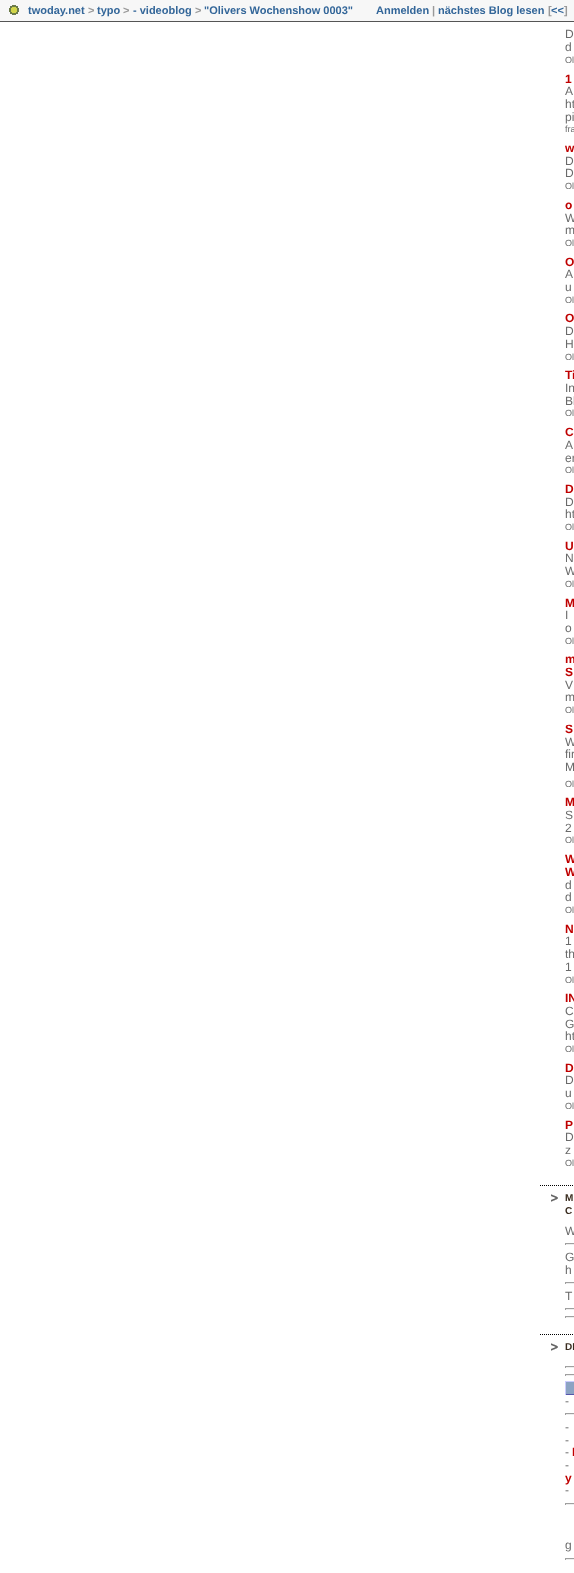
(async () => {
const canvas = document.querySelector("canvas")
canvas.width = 574
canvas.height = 1573
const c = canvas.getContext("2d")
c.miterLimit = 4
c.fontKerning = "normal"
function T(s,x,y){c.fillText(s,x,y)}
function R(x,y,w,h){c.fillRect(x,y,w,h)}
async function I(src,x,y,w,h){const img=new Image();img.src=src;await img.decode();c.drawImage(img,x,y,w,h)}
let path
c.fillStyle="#fff"
R(0,0,574,1573)
c.fillStyle="#f7f7f7"
R(0,0,574,21)
c.fillStyle="#555"
R(0,21,574,1)
await I("1.png",9,5,10,10)
c.font="bold 11px Liberation Sans"
c.fillStyle="#369"
T("twoday.net",28,14)
c.fillStyle="#999"
T(">",88,14)
c.fillStyle="#369"
T("typo",97,14)
c.fillStyle="#999"
T(">",123,14)
c.fillStyle="#369"
T("- videoblog",133,14)
c.fillStyle="#999"
T(">",195,14)
c.fillStyle="#369"
T("\"Olivers Wochenshow 0003\"",204,14)
T("Anmelden",376,14)
c.fillStyle="#999"
T("|",432,14)
c.fillStyle="#369"
T("nächstes Blog lesen",438,14)
c.fillStyle="#999"
T("[",548,14)
c.fillStyle="#369"
T("<<",551,14)
c.fillStyle="#999"
T("]",564,14)
path = new Path2D("M540 1185.5h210")
c.strokeStyle="#000"
c.setLineDash([1,1])
c.stroke(path)
c.font="12px Liberation Sans"
c.fillStyle="#6a6a6a"
T("D",565,38)
T("d",565,51)
c.font="9px Liberation Sans"
T("Ol",565,63)
c.font="bold 12px Liberation Sans"
c.fillStyle="#bf0000"
T("1",565,83)
c.font="12px Liberation Sans"
c.fillStyle="#6a6a6a"
T("A",565,95)
T("ht",565,108)
T("pi",565,121)
c.font="9px Liberation Sans"
T("fra",565,132)
c.font="bold 12px Liberation Sans"
c.fillStyle="#bf0000"
T("w",565,152)
c.font="12px Liberation Sans"
c.fillStyle="#6a6a6a"
T("D",565,165)
T("D",565,177)
c.font="9px Liberation Sans"
T("Ol",565,189)
c.font="bold 12px Liberation Sans"
c.fillStyle="#bf0000"
T("o",565,209)
c.font="12px Liberation Sans"
c.fillStyle="#6a6a6a"
T("W",565,222)
T("m",565,234)
c.font="9px Liberation Sans"
T("Ol",565,246)
c.font="bold 12px Liberation Sans"
c.fillStyle="#bf0000"
T("O",565,266)
c.font="12px Liberation Sans"
c.fillStyle="#6a6a6a"
T("A",565,278)
T("u",565,291)
c.font="9px Liberation Sans"
T("Ol",565,303)
c.font="bold 12px Liberation Sans"
c.fillStyle="#bf0000"
T("O",565,322)
c.font="12px Liberation Sans"
c.fillStyle="#6a6a6a"
T("D",565,335)
T("H",565,348)
c.font="9px Liberation Sans"
T("Ol",565,360)
c.font="bold 12px Liberation Sans"
c.fillStyle="#bf0000"
T("Ti",565,379)
c.font="12px Liberation Sans"
c.fillStyle="#6a6a6a"
T("In",565,392)
T("Bl",565,405)
c.font="9px Liberation Sans"
T("Ol",565,416)
c.font="bold 12px Liberation Sans"
c.fillStyle="#bf0000"
T("C",565,436)
c.font="12px Liberation Sans"
c.fillStyle="#6a6a6a"
T("A",565,449)
T("er",565,462)
c.font="9px Liberation Sans"
T("Ol",565,473)
c.font="bold 12px Liberation Sans"
c.fillStyle="#bf0000"
T("D",565,493)
c.font="12px Liberation Sans"
c.fillStyle="#6a6a6a"
T("D",565,506)
T("ht",565,518)
c.font="9px Liberation Sans"
T("Ol",565,530)
c.font="bold 12px Liberation Sans"
c.fillStyle="#bf0000"
T("U",565,550)
c.font="12px Liberation Sans"
c.fillStyle="#6a6a6a"
T("N",565,562)
T("W",565,575)
c.font="9px Liberation Sans"
T("Ol",565,587)
c.font="bold 12px Liberation Sans"
c.fillStyle="#bf0000"
T("M",565,607)
c.font="12px Liberation Sans"
c.fillStyle="#6a6a6a"
T("I",565,619)
T("o",565,632)
c.font="9px Liberation Sans"
T("Ol",565,644)
c.font="bold 12px Liberation Sans"
c.fillStyle="#bf0000"
T("m",565,663)
T("S",565,676)
c.font="12px Liberation Sans"
c.fillStyle="#6a6a6a"
T("V",565,689)
T("m",565,701)
c.font="9px Liberation Sans"
T("Ol",565,713)
c.font="bold 12px Liberation Sans"
c.fillStyle="#bf0000"
T("S",565,733)
c.font="12px Liberation Sans"
c.fillStyle="#6a6a6a"
T("W",565,746)
T("fin",565,758)
T("M",565,771)
c.font="9px Liberation Sans"
T("Ol",565,787)
c.font="bold 12px Liberation Sans"
c.fillStyle="#bf0000"
T("M",565,806)
c.font="12px Liberation Sans"
c.fillStyle="#6a6a6a"
T("S",565,819)
T("2",565,832)
c.font="9px Liberation Sans"
T("Ol",565,843)
c.font="bold 12px Liberation Sans"
c.fillStyle="#bf0000"
T("W",565,863)
T("W",565,876)
c.font="12px Liberation Sans"
c.fillStyle="#6a6a6a"
T("d",565,889)
T("d",565,901)
c.font="9px Liberation Sans"
T("Ol",565,913)
c.font="bold 12px Liberation Sans"
c.fillStyle="#bf0000"
T("N",565,933)
c.font="12px Liberation Sans"
c.fillStyle="#6a6a6a"
T("1",565,945)
T("th",565,958)
T("1",565,971)
c.font="9px Liberation Sans"
T("Ol",565,983)
c.font="bold 12px Liberation Sans"
c.fillStyle="#bf0000"
T("IN",565,1002)
c.font="12px Liberation Sans"
c.fillStyle="#6a6a6a"
T("C",565,1015)
T("G",565,1028)
T("ht",565,1040)
c.font="9px Liberation Sans"
T("Ol",565,1052)
c.font="bold 12px Liberation Sans"
c.fillStyle="#bf0000"
T("D",565,1072)
c.font="12px Liberation Sans"
c.fillStyle="#6a6a6a"
T("D",565,1084)
T("u",565,1097)
c.font="9px Liberation Sans"
T("Ol",565,1109)
c.font="bold 12px Liberation Sans"
c.fillStyle="#bf0000"
T("P",565,1129)
c.font="12px Liberation Sans"
c.fillStyle="#6a6a6a"
T("D",565,1141)
T("z",565,1154)
c.font="9px Liberation Sans"
T("Ol",565,1166)
await I("2.png",551,1194,7,8)
path = new Path2D("M540 1334.5h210")
c.stroke(path)
c.font="bold 10px Liberation Sans"
c.fillStyle="#3a2c1f"
T("M",565,1201)
T("C",565,1214)
c.font="12px Liberation Sans"
c.fillStyle="#6a6a6a"
T("W",565,1235)
c.fillStyle="#9f9f9f"
R(565,1243,9,1)
c.fillStyle="#eee"
R(565,1244,9,1)
c.fillStyle="#9f9f9f"
R(565,1243,1,2)
c.fillStyle="#6a6a6a"
T("G",565,1261)
T("h",565,1274)
c.fillStyle="#9f9f9f"
R(565,1282,9,1)
c.fillStyle="#eee"
R(565,1283,9,1)
c.fillStyle="#9f9f9f"
R(565,1282,1,2)
c.fillStyle="#6a6a6a"
T("T",565,1300)
c.fillStyle="#9f9f9f"
R(565,1308,9,1)
c.fillStyle="#eee"
R(565,1309,9,1)
c.fillStyle="#9f9f9f"
R(565,1308,1,2)
R(565,1316,9,1)
c.fillStyle="#eee"
R(565,1317,9,1)
c.fillStyle="#9f9f9f"
R(565,1316,1,2)
await I("2.png",551,1343,7,8)
c.font="bold 10px Liberation Sans"
c.fillStyle="#3a2c1f"
T("DI",565,1350)
c.fillStyle="#9f9f9f"
R(565,1366,9,1)
c.fillStyle="#eee"
R(565,1367,9,1)
c.fillStyle="#9f9f9f"
R(565,1366,1,2)
R(565,1374,9,1)
c.fillStyle="#eee"
R(565,1375,9,1)
c.fillStyle="#9f9f9f"
R(565,1374,1,2)
c.fillStyle="#ccf"
R(565,1381,9,1)
c.fillStyle="#55a"
R(565,1394,9,1)
c.fillStyle="#ccf"
R(565,1381,1,14)
c.fillStyle="#8ca3c3"
R(566,1382,8,12)
c.font="12px Liberation Sans"
c.fillStyle="#6a6a6a"
T("-",565,1405)
c.fillStyle="#9f9f9f"
R(565,1413,9,1)
c.fillStyle="#eee"
R(565,1414,9,1)
c.fillStyle="#9f9f9f"
R(565,1413,1,2)
c.fillStyle="#6a6a6a"
T("-",565,1431)
T("-",565,1444)
T("-",565,1456)
c.font="bold 12px Liberation Sans"
c.fillStyle="#bf0000"
T("I",572,1456)
c.font="12px Liberation Sans"
c.fillStyle="#6a6a6a"
T("-",565,1469)
c.font="bold 12px Liberation Sans"
c.fillStyle="#bf0000"
T("y",565,1482)
c.font="12px Liberation Sans"
c.fillStyle="#6a6a6a"
T("-",565,1494)
c.fillStyle="#9f9f9f"
R(565,1503,9,1)
c.fillStyle="#eee"
R(565,1504,9,1)
c.fillStyle="#9f9f9f"
R(565,1503,1,2)
c.fillStyle="#6a6a6a"
T("g",565,1549)
c.fillStyle="#9f9f9f"
R(565,1558,9,1)
c.fillStyle="#eee"
R(565,1559,9,1)
c.fillStyle="#9f9f9f"
R(565,1558,1,2)
})()
